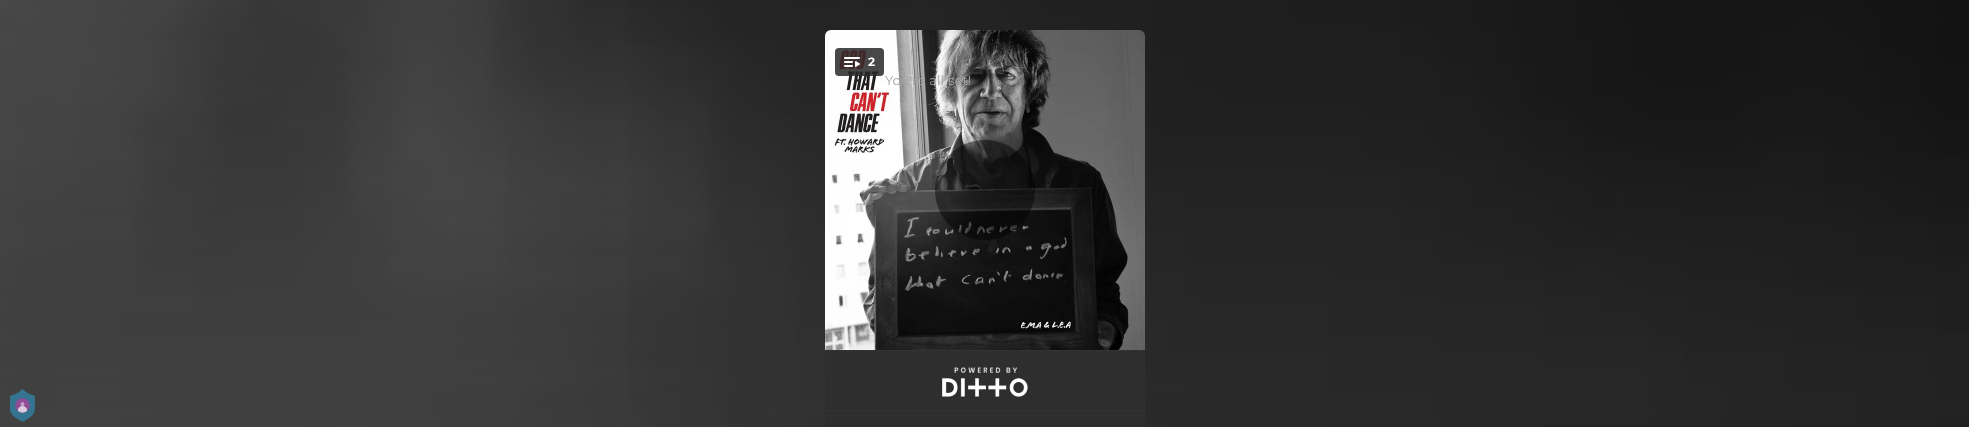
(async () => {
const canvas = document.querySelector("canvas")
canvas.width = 1969
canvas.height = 427
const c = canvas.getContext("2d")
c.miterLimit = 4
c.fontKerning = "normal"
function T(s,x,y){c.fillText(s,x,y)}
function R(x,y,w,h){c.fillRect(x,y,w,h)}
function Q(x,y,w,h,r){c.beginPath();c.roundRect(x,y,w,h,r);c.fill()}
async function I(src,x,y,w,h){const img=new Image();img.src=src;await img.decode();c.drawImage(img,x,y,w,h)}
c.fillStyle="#fff"
R(0,0,1969,427)
await I("1.png",0,0,1969,427)
await I("2.png",825,30,320,320)
c.fillStyle="#282828d9"
Q(835,48,49,28,4)
await I("3.png",844,57,16,10)
c.font="bold 12px Montserrat"
c.fillStyle="#fff"
T("2",868,66)
c.fillStyle="#00000073"
c.beginPath()
c.arc(985,190,50,0,7)
c.fill()
c.wordSpacing="1px"
c.font="13px Montserrat"
c.fillStyle="#a4a4a4"
T("You're all set!",885,85)
c.fillStyle="#2e2e2e"
R(825,351,320,59)
c.fillStyle="#333"
R(825,350,320,1)
R(825,410,320,1)
await I("4.png",942,367,86,30)
c.fillStyle="#2e2e2e"
R(825,411,320,16)
await I("5.png",10,389,25,33)
})()
